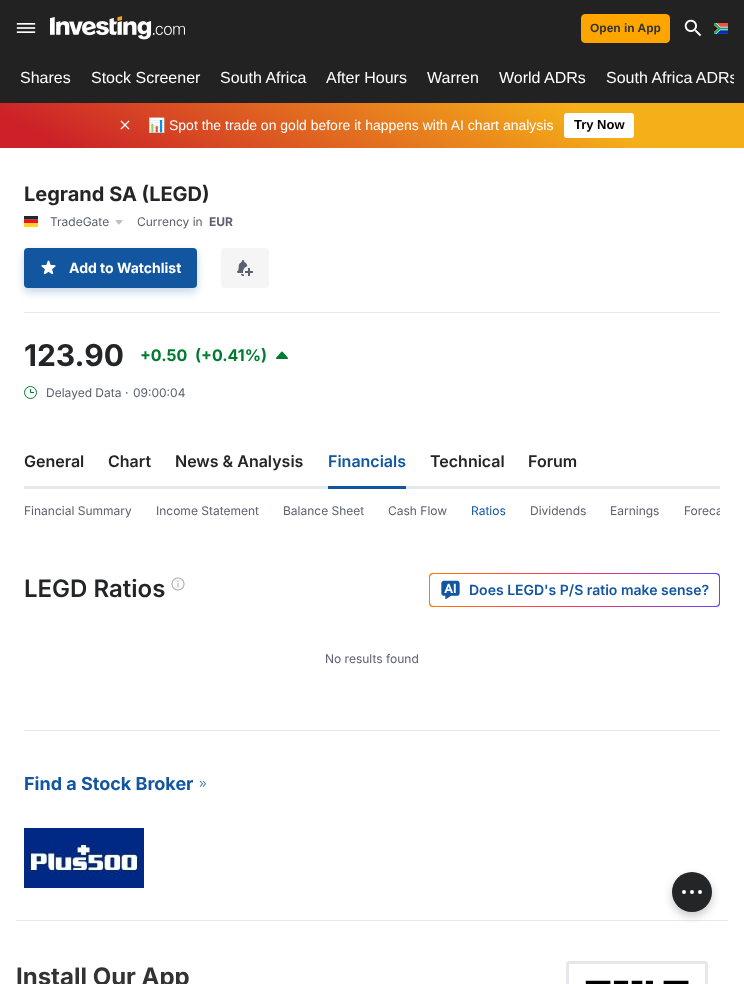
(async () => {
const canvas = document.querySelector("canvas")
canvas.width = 744
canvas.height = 984
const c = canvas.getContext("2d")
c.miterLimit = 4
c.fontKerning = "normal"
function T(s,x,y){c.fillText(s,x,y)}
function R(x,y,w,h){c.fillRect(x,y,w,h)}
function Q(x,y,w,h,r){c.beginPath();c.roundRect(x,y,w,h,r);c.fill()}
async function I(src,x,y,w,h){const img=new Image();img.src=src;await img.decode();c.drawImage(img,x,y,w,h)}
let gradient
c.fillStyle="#fff"
R(0,0,744,984)
c.fillStyle="#222"
R(0,0,744,103)
await I("1.png",16,23,20,10)
await I("2.png",50,16,135,24)
c.fillStyle="#ffa500"
c.beginPath()
c.roundRect(581.5,14.5,88,28,3.5)
c.fill()
c.strokeStyle="#ffa500"
c.stroke()
c.font="bold 12px Liberation Sans"
c.fillStyle="#333"
T("Open in App",590,32)
await I("3.png",684,19,18,18)
await I("4.png",714,23,14,11)
c.font="16px Liberation Sans"
c.fillStyle="#fff"
T("Shares",20,83)
T("Stock Screener",91,83)
T("South Africa",220,83)
T("After Hours",326,83)
T("Warren",427,83)
T("World ADRs",499,83)
c.save()
c.beginPath()
c.rect(10,56,724,47)
c.clip()
T("South Africa ADRs",606,83)
c.restore()
gradient = c.createLinearGradient(467,-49,277,300)
gradient.addColorStop(.22,"#f5af19")
gradient.addColorStop(.92,"#cc2128")
c.fillStyle = gradient
R(0,103,744,45)
await I("5.png",120,120,10,10)
c.font="14px Noto Color Emoji"
c.fillStyle="#fff"
T("📊",148,130)
c.font="14px Liberation Sans"
T("Spot the trade on gold before it happens with AI chart analysis",169,130)
Q(564,113,70,25,3)
c.font="bold 13px Liberation Sans"
c.fillStyle="#000"
T("Try Now",574,129)
c.font="bold 20px Inter"
c.fillStyle="#232526"
T("Legrand SA (LEGD)",24,201)
await I("6.png",24,216,14,11)
c.font="12px Inter"
c.fillStyle="#5b616e"
T("TradeGate",50,226)
await I("7.png",115,220,8,5)
T("Currency in",137,226)
c.font="bold 12px Inter"
T("EUR",209,226)
c.fillStyle="#1256a040"
c.filter="blur(4px)"
c.beginPath()
c.roundRect(24,252,173,40,4)
c.fill()
c.filter="none"
c.fillStyle="#1256a0"
Q(24,248,173,40,4)
await I("8.png",41,260,15,15)
c.font="bold 14px Inter"
c.fillStyle="#fff"
T("Add to Watchlist",69,273)
c.fillStyle="#f5f5f5"
Q(221,248,48,40,4)
await I("9.png",237,260,16,16)
c.fillStyle="#e6e9eb"
R(24,312,696,1)
c.font="bold 30px Inter"
c.fillStyle="#232526"
T("123.90",24,366)
c.font="bold 16px Inter"
c.fillStyle="#007c32"
T("+0.50",140,361)
T("(+0.41%)",195,361)
await I("10.png",276,351,12,8)
await I("11.png",24,386,13,13)
c.font="12px Inter"
c.fillStyle="#5b616e"
T("Delayed Data",46,397)
T("·",125,397)
T("09:00:04",133,397)
c.fillStyle="#e6e9eb"
R(24,486,696,3)
c.font="600 16px Inter"
c.fillStyle="#232526"
T("General",24,467)
T("Chart",108,467)
T("News & Analysis",175,467)
c.fillStyle="#1256a0"
R(328,486,78,3)
T("Financials",328,467)
c.fillStyle="#232526"
T("Technical",430,467)
T("Forum",528,467)
c.font="12px Inter"
c.fillStyle="#5b616e"
T("Financial Summary",24,515)
T("Income Statement",156,515)
T("Balance Sheet",283,515)
T("Cash Flow",388,515)
c.fillStyle="#1256a0"
T("Ratios",471,515)
c.fillStyle="#5b616e"
T("Dividends",530,515)
T("Earnings",610,515)
c.save()
c.beginPath()
c.rect(24,489,696,44)
c.clip()
T("Foreca",684,515)
c.restore()
c.font="600 24px Inter"
c.fillStyle="#232526"
T("LEGD Ratios",24,597)
await I("12.png",171,577,14,14)
gradient = c.createLinearGradient(429,590,720,590)
gradient.addColorStop(0,"#ff7901")
gradient.addColorStop(.5,"#ff3363")
gradient.addColorStop(1,"#6244ff")
c.fillStyle = gradient
Q(429,573,291,34,4)
c.fillStyle="#fff"
Q(430,574,289,32,4)
await I("13.png",441,580,19,19)
c.font="600 14px Inter"
c.fillStyle="#1256a0"
T("Does LEGD's P/S ratio make sense?",469,595)
c.font="12px Inter"
c.fillStyle="#5b616e"
T("No results found",325,663)
c.fillStyle="#e6e9eb"
R(24,730,696,1)
c.font="bold 18px Inter"
c.fillStyle="#1256a0"
T("Find a Stock Broker",24,790)
await I("14.png",199,780,7,7)
await I("15.png",24,828,120,60)
c.fillStyle="#e6e9eb"
R(16,920,712,1)
c.fillStyle="#23252640"
c.filter="blur(4px)"
c.beginPath()
c.roundRect(672,876,40,40,20)
c.fill()
c.filter="none"
c.fillStyle="#232526"
c.beginPath()
c.arc(692,892,20,0,7)
c.fill()
c.fillStyle="#fff"
c.beginPath()
c.arc(700,892,2,0,7)
c.fill()
c.beginPath()
c.arc(684,892,2,0,7)
c.fill()
c.beginPath()
c.arc(692,892,2,0,7)
c.fill()
c.font="bold 24px Inter"
c.fillStyle="#333"
T("Install Our App",16,985)
c.beginPath()
c.roundRect(567.5,962.5,139,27,2.5)
c.strokeStyle="#e5e7eb"
c.lineWidth=3
c.stroke()
await I("16.png",585,980,104,4)
})()
